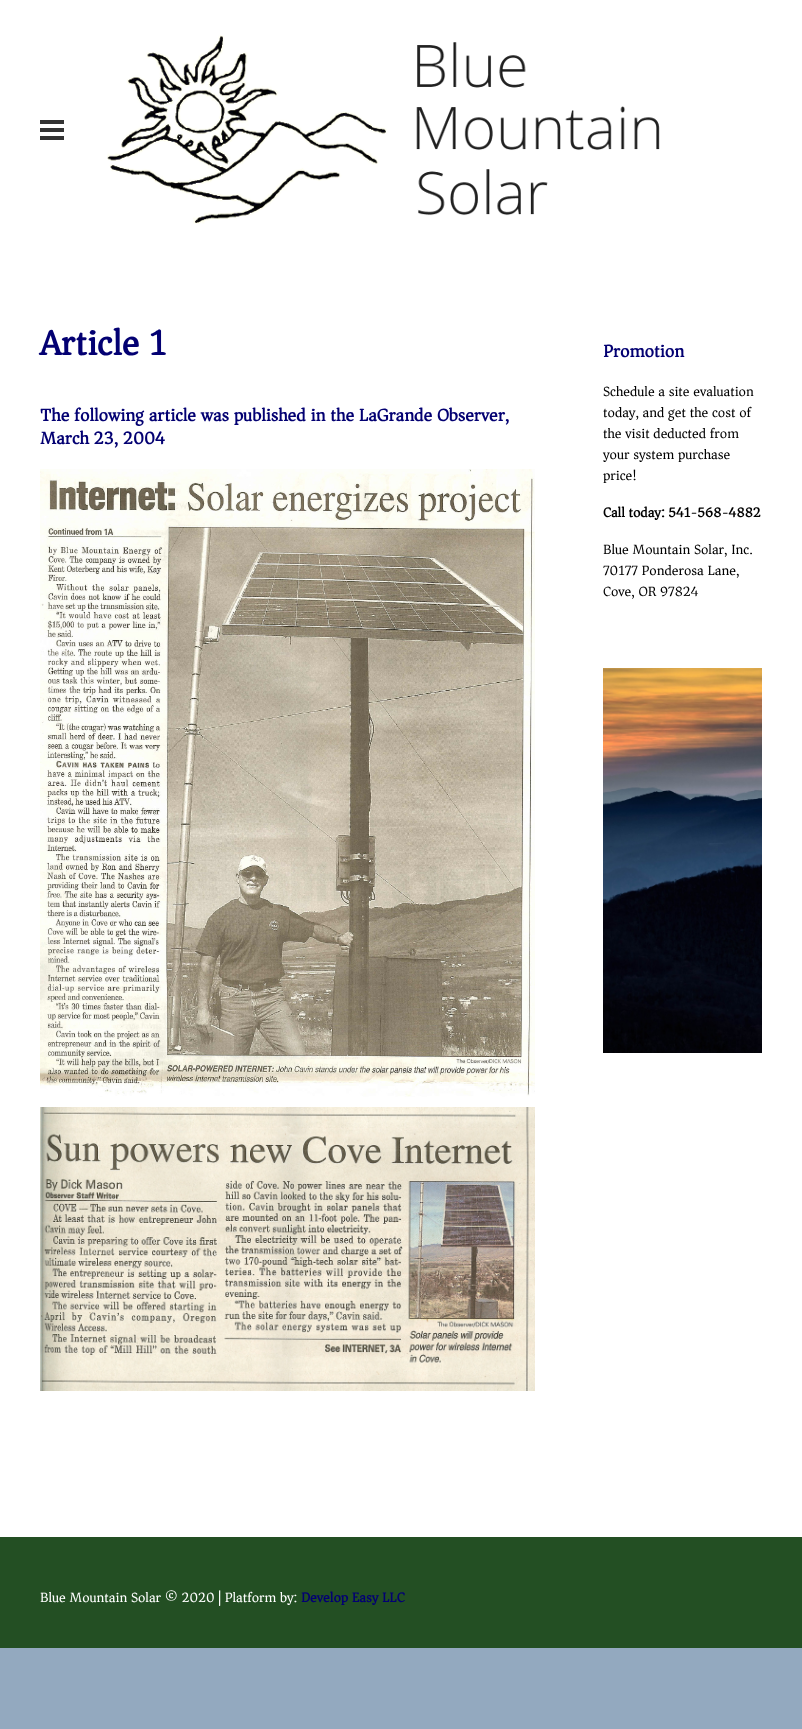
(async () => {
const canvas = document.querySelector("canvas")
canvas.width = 802
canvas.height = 1729
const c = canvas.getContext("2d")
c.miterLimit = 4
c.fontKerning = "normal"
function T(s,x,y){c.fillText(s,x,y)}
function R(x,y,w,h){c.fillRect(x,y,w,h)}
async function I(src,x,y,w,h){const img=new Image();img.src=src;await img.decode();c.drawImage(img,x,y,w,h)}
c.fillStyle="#93a9bf"
R(0,0,802,1729)
c.fillStyle="#fff"
R(0,0,802,1537)
c.fillStyle="#333"
R(40,120,24,4)
R(40,128,24,4)
R(40,136,24,4)
await I("1.png",107,35,553,189)
c.font="bold 36.5px Asar"
c.fillStyle="#030072"
T("Article 1",40,355)
c.font="bold 18px Asar"
T("The following article was published in the LaGrande Observer,",40,421)
T("March 23, 2004",40,444)
await I("2.png",40,469,495,628)
await I("3.png",40,1107,495,284)
T("Promotion",603,357)
c.font="14px Asar"
c.fillStyle="#000"
T("Schedule a site evaluation",603,396)
T("today, and get the cost of",603,417)
T("the visit deducted from",603,438)
T("your system purchase",603,459)
T("price!",603,480)
c.font="bold 14px Asar"
T("Call today: 541-568-4882",603,517)
c.font="14px Asar"
T("Blue Mountain Solar, Inc.",603,554)
T("70177 Ponderosa Lane,",603,575)
T("Cove, OR 97824",603,596)
await I("4.png",603,668,159,385)
c.fillStyle="#234f23"
R(0,1537,802,111)
c.fillStyle="#fff"
T("Blue Mountain Solar © 2020 | Platform by:",40,1602)
c.font="bold 14px Asar"
c.fillStyle="#030072"
T("Develop Easy LLC",301,1602)
})()
